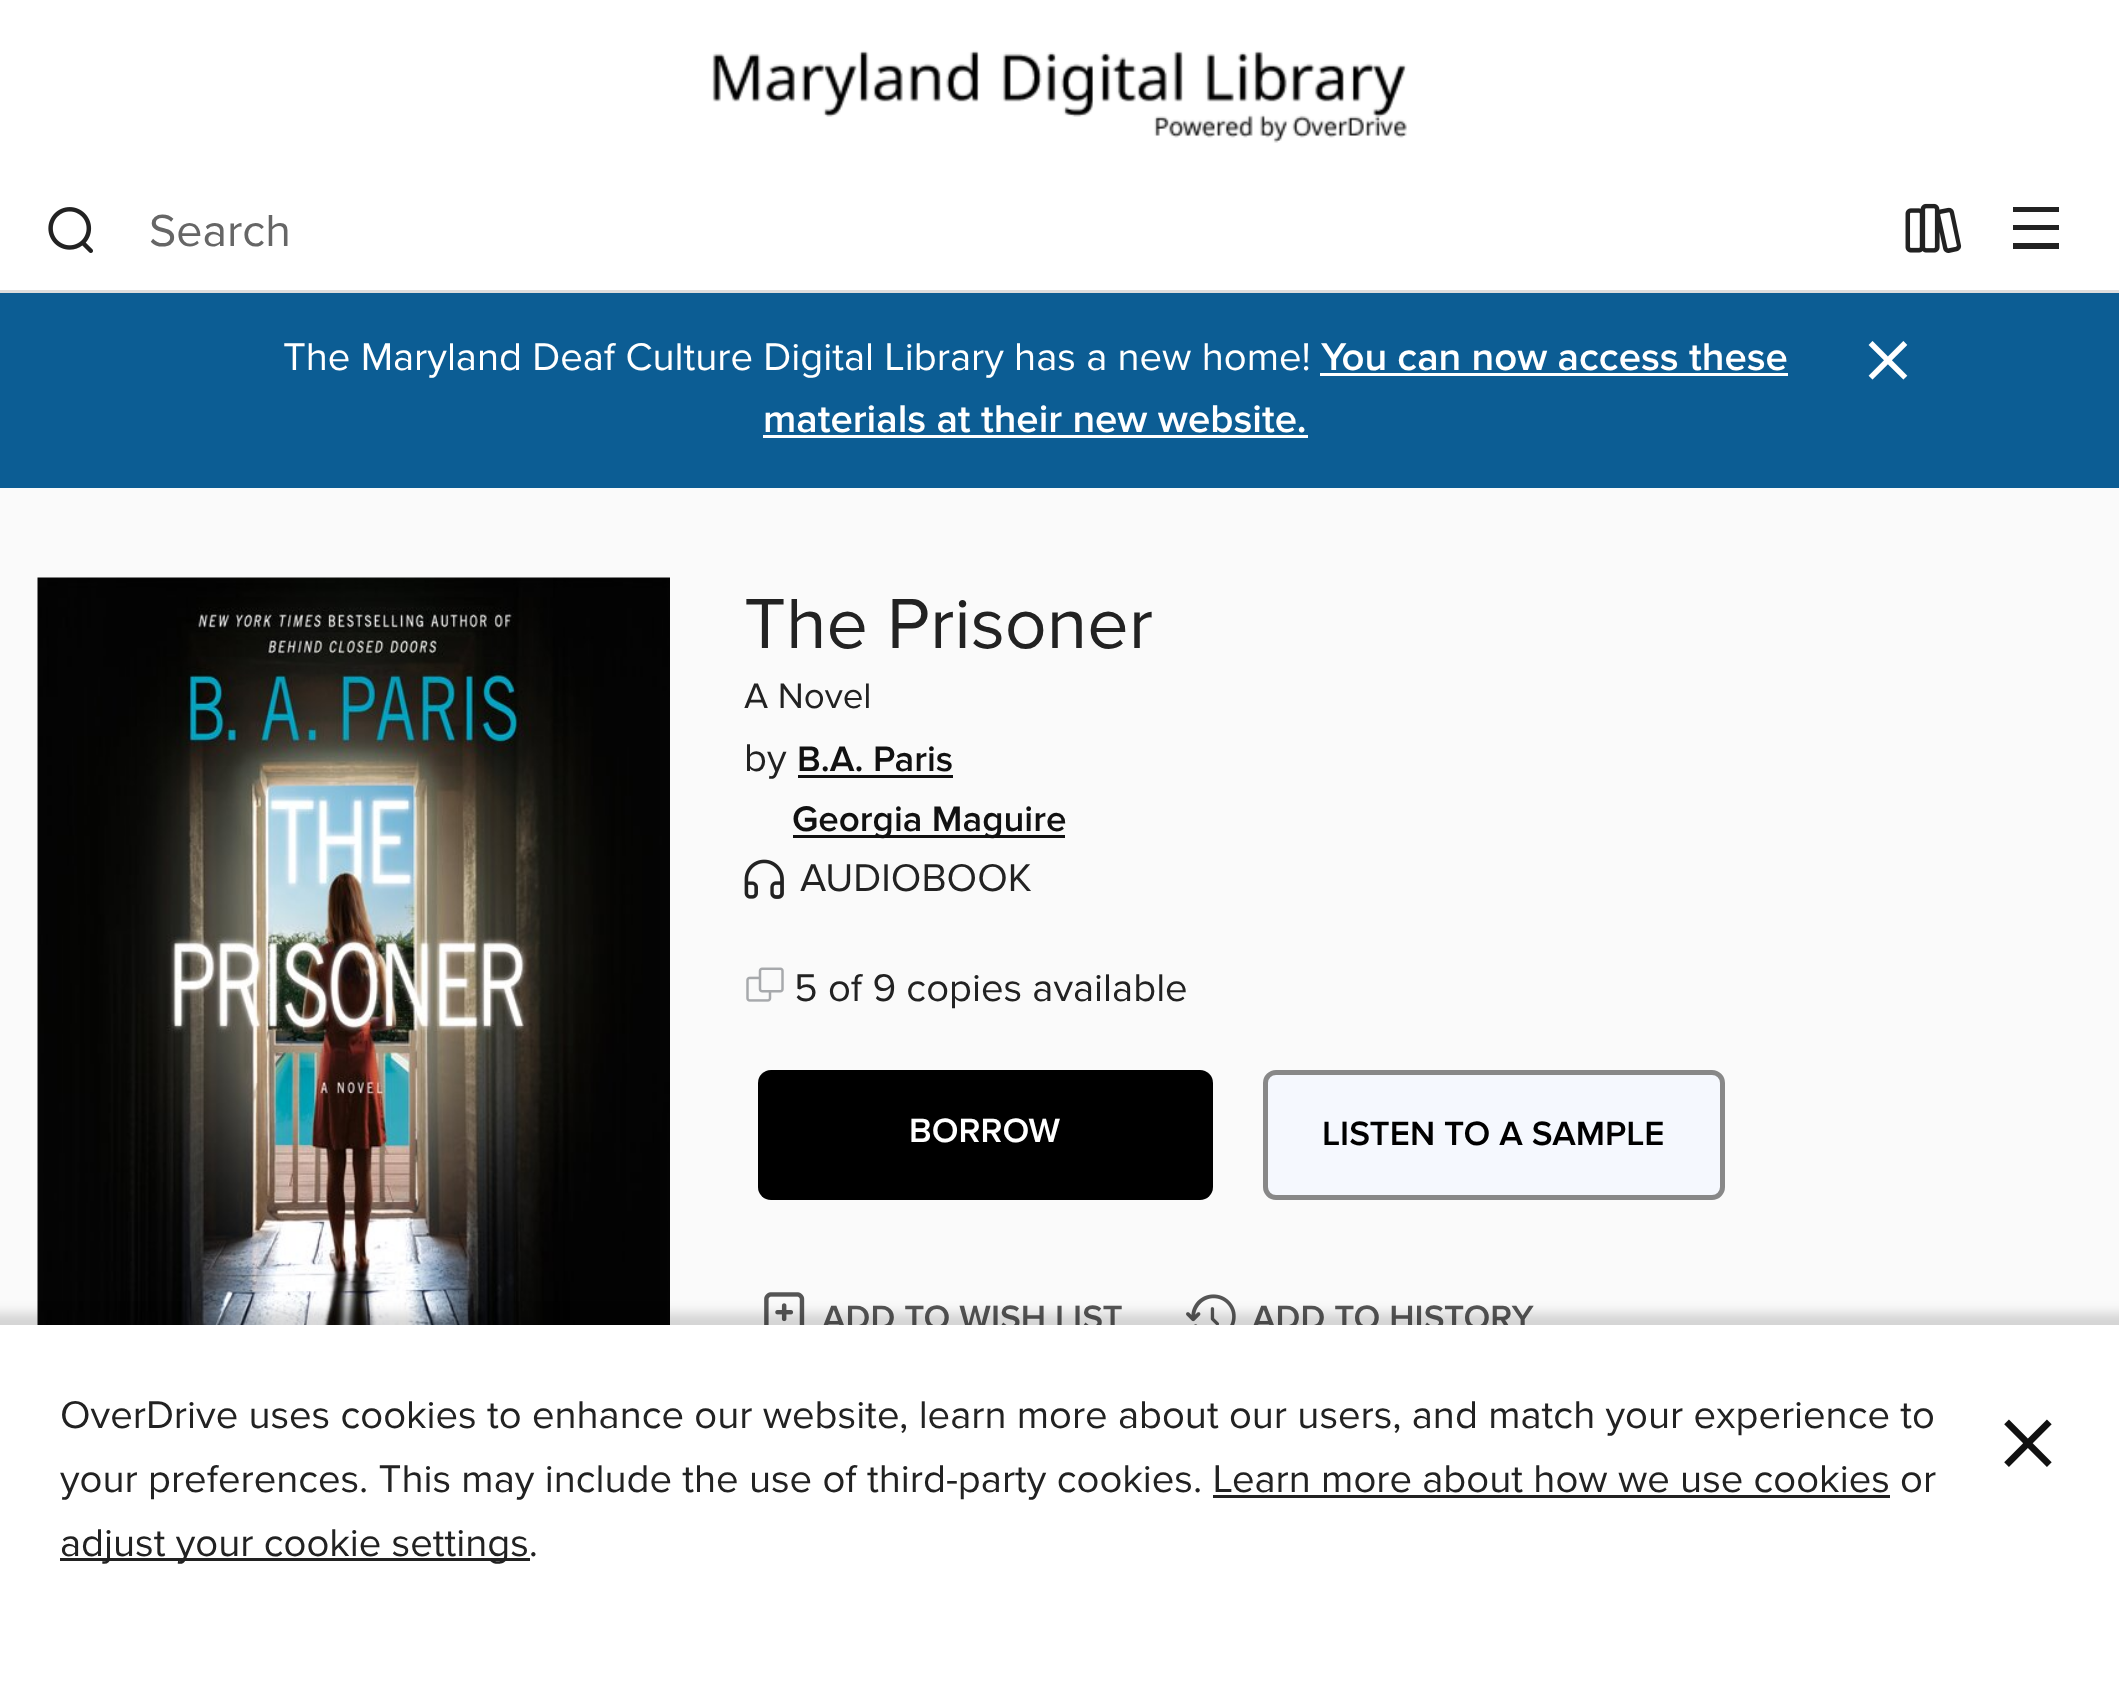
(async () => {
const canvas = document.querySelector("canvas")
canvas.width = 2119
canvas.height = 1686
const c = canvas.getContext("2d")
c.miterLimit = 4
c.fontKerning = "normal"
function T(s,x,y){c.fillText(s,x,y)}
function R(x,y,w,h){c.fillRect(x,y,w,h)}
function Q(x,y,w,h,r){c.beginPath();c.roundRect(x,y,w,h,r);c.fill()}
async function I(src,x,y,w,h){const img=new Image();img.src=src;await img.decode();c.drawImage(img,x,y,w,h)}
let path
c.fillStyle="#fafafa"
R(0,0,2119,1686)
c.fillStyle="#fff"
R(0,0,2119,290)
await I("1.png",712,50,695,93)
c.fillStyle="#ddd"
R(0,290,2119,3)
await I("2.png",48,207,45,46)
c.font="46.5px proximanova"
c.fillStyle="#666"
T("Search",149,246)
await I("3.png",1905,203,57,50)
c.fillStyle="#222"
path = new Path2D("M2013 207v5h46v-5zm0 23h46v-5h-46zm0 19h46v-6h-46z")
c.fill(path)
c.fillStyle="#0c5d94"
R(0,293,2119,195)
c.font="40px proximanova"
c.fillStyle="#fff"
T("The Maryland Deaf Culture Digital Library has a new home!",283,370)
c.font="600 40px Proxima Nova"
T("You can now access these",1321,370)
R(1320,373,468,3)
T("materials at their new website.",763,432)
R(763,435,545,3)
c.font="104px proximanova"
T("×",1862,395)
await I("4.png",37,577,633,748)
c.font="73.5px proximanova"
c.fillStyle="#222"
T("The Prisoner",744,648)
c.font="36.75px proximanova"
T("A Novel",744,708)
c.font="40px proximanova"
T("by",744,771)
c.font="600 36.75px Proxima Nova"
c.fillStyle="#111"
T("B.A. Paris",797,771)
R(798,775,155,3)
R(793,835,272,3)
T("Georgia Maguire",792,831)
await I("5.png",744,859,40,40)
c.font="40px proximanova"
c.fillStyle="#222"
T("AUDIOBOOK",800,891)
await I("6.png",746,967,38,35)
T("5 of 9 copies available",794,1001)
c.fillStyle="#000"
Q(758,1070,455,130,13)
c.font="600 35px Proxima Nova"
c.fillStyle="#fff"
T("BORROW",909,1142)
c.fillStyle="#f5f8fe"
c.beginPath()
c.roundRect(1265.5,1072.5,457,125,10.5)
c.fill()
c.strokeStyle="#888"
c.lineWidth=5
c.stroke()
c.fillStyle="#000"
T("LISTEN TO A SAMPLE",1322,1145)
await I("7.png",764,1292,41,33)
c.fillStyle="#555"
T("ADD TO WISH LIST",822,1329)
await I("8.png",1186,1294,50,31)
T("ADD TO HISTORY",1252,1329)
c.fillStyle="#00000026"
c.filter="blur(6px)"
c.beginPath()
c.rect(-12,1313,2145,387)
c.fill()
c.filter="none"
c.fillStyle="#fff"
R(0,1325,2119,361)
c.font="40px proximanova"
c.fillStyle="#222"
T("OverDrive uses cookies to enhance our website, learn more about our users, and match your experience to",60,1428)
T("your preferences. This may include the use of third-party cookies. Learn more about how we use cookies or",60,1492)
R(1213,1495,677,3)
R(60,1558,470,3)
T("adjust your cookie settings.",60,1556)
c.font="128px proximanova"
c.fillStyle="#111"
T("×",1996,1486)
})()
